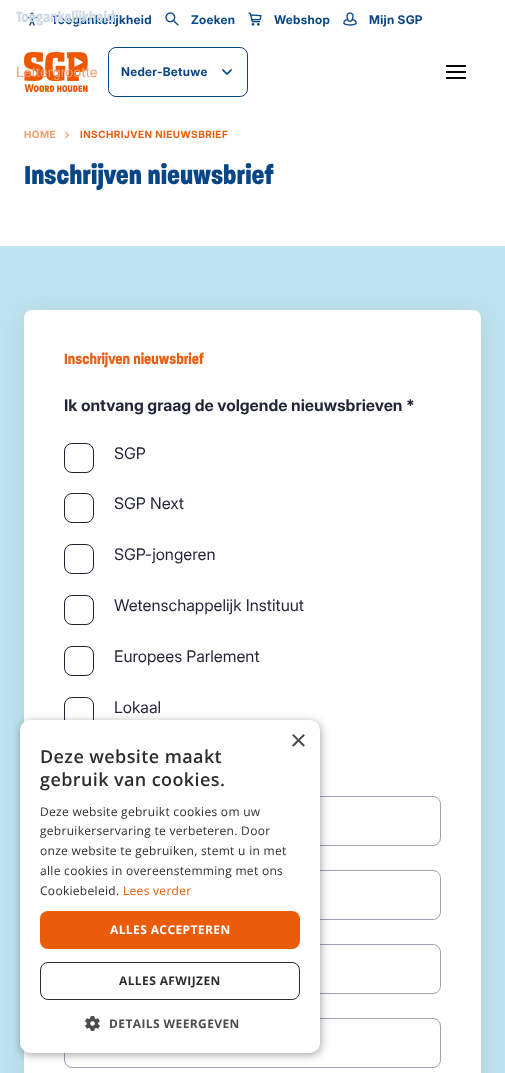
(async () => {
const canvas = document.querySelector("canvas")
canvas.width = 505
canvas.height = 1073
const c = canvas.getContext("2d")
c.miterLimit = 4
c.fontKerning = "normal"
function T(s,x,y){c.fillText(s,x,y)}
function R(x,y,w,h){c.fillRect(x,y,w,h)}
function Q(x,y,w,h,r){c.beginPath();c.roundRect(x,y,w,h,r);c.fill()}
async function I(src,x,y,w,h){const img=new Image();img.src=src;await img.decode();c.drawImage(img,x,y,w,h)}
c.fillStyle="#fff"
R(0,0,505,1073)
await I("1.png",26,12,12,14)
c.letterSpacing="0.3px"
c.font="bold 12px Inter"
c.fillStyle="#084686"
T("Toegankelijkheid",51,24)
c.letterSpacing="0px"
c.font="bold 16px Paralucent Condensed"
c.fillStyle="#cedae7"
T("Toegankelijkheid",16,22)
await I("5.png",24,52,64,40)
c.font="14px Inter"
c.fillStyle="#f29e70"
T("Lettergrootte",16,77)
await I("2.png",165,12,14,14)
c.letterSpacing="0.3px"
c.font="bold 12px Inter"
c.fillStyle="#084686"
T("Zoeken",191,24)
await I("3.png",248,12,14,14)
T("Webshop",274,24)
await I("4.png",343,12,14,14)
T("Mijn SGP",369,24)
c.beginPath()
c.roundRect(108.5,47.5,139,49,7.5)
c.strokeStyle="#084686"
c.stroke()
T("Neder-Betuwe",121,76)
await I("6.png",222,69,10,6)
c.fillStyle="#000"
R(446,71,20,2)
R(446,65,20,2)
R(446,77,20,2)
c.letterSpacing="0.5px"
c.font="bold 10px Inter"
c.fillStyle="#f29e70"
T("HOME",24,138)
await I("7.png",65,131,4,8)
c.fillStyle="#e95e10"
T("INSCHRIJVEN NIEUWSBRIEF",80,138)
c.letterSpacing="0px"
c.font="900 28px Paralucent Condensed"
c.fillStyle="#084686"
T("Inschrijven nieuwsbrief",24,184)
c.fillStyle="#bfe3f0"
R(0,246,505,827)
c.fillStyle="#1f24361a"
c.filter="blur(12px)"
c.beginPath()
c.roundRect(24,314,457,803,8)
c.fill()
c.filter="none"
c.fillStyle="#fff"
Q(24,310,457,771,8)
c.font="bold 16px Paralucent Condensed"
c.fillStyle="#e95e10"
T("Inschrijven nieuwsbrief",64,364)
c.font="bold 16px Inter"
c.fillStyle="#1f2436"
T("Ik ontvang graag de volgende nieuwsbrieven *",64,411)
c.beginPath()
c.roundRect(64.5,443.5,29,29,7.5)
c.strokeStyle="#1f2436"
c.stroke()
c.font="16px Inter"
T("SGP",114,459)
c.beginPath()
c.roundRect(64.5,493.5,29,29,7.5)
c.stroke()
T("SGP Next",114,509)
c.beginPath()
c.roundRect(64.5,544.5,29,29,7.5)
c.stroke()
T("SGP-jongeren",114,560)
c.beginPath()
c.roundRect(64.5,595.5,29,29,7.5)
c.stroke()
T("Wetenschappelijk Instituut",114,611)
c.beginPath()
c.roundRect(64.5,646.5,29,29,7.5)
c.stroke()
T("Europees Parlement",114,662)
c.beginPath()
c.roundRect(64.5,697.5,29,29,7.5)
c.stroke()
T("Lokaal",114,713)
c.beginPath()
c.roundRect(64.5,796.5,376,49,7.5)
c.strokeStyle="#9ea2af"
c.stroke()
c.beginPath()
c.roundRect(64.5,870.5,376,49,7.5)
c.stroke()
c.beginPath()
c.roundRect(64.5,944.5,376,49,7.5)
c.stroke()
c.beginPath()
c.roundRect(64.5,1018.5,376,49,7.5)
c.stroke()
c.fillStyle="#00000059"
c.filter="blur(4px)"
c.beginPath()
c.roundRect(21,722,300,333,10)
c.fill()
c.filter="none"
c.fillStyle="#fff"
Q(20,720,300,333,10)
c.font="29px Liberation Sans"
c.fillStyle="#4d4d4d"
T("×",290,750)
c.letterSpacing="0.4px"
c.font="600 18px Open Sans"
c.fillStyle="#2d2d2d"
T("Deze website maakt",40,763)
T("gebruik van cookies.",40,786)
c.letterSpacing="0.3px"
c.font="12px Open Sans"
T("Deze website gebruikt cookies om uw",40,816)
T("gebruikerservaring te verbeteren. Door",40,835)
T("onze website te gebruiken, stemt u in met",40,855)
T("alle cookies in overeenstemming met ons",40,875)
T("Cookiebeleid.",40,895)
c.fillStyle="#ea5b0a"
T("Lees verder",123,895)
Q(40,911,260,38,8)
c.letterSpacing="0.4px"
c.font="bold 12px Open Sans"
c.fillStyle="#fff"
T("ALLES ACCEPTEREN",110,934)
c.beginPath()
c.roundRect(40.5,962.5,259,37,7.5)
c.strokeStyle="#2d2d2d"
c.stroke()
c.fillStyle="#2d2d2d"
T("ALLES AFWIJZEN",119,985)
await I("8.png",85,1016,15,15)
c.fillStyle="#4d4d4d"
T("DETAILS WEERGEVEN",109,1028)
})()
